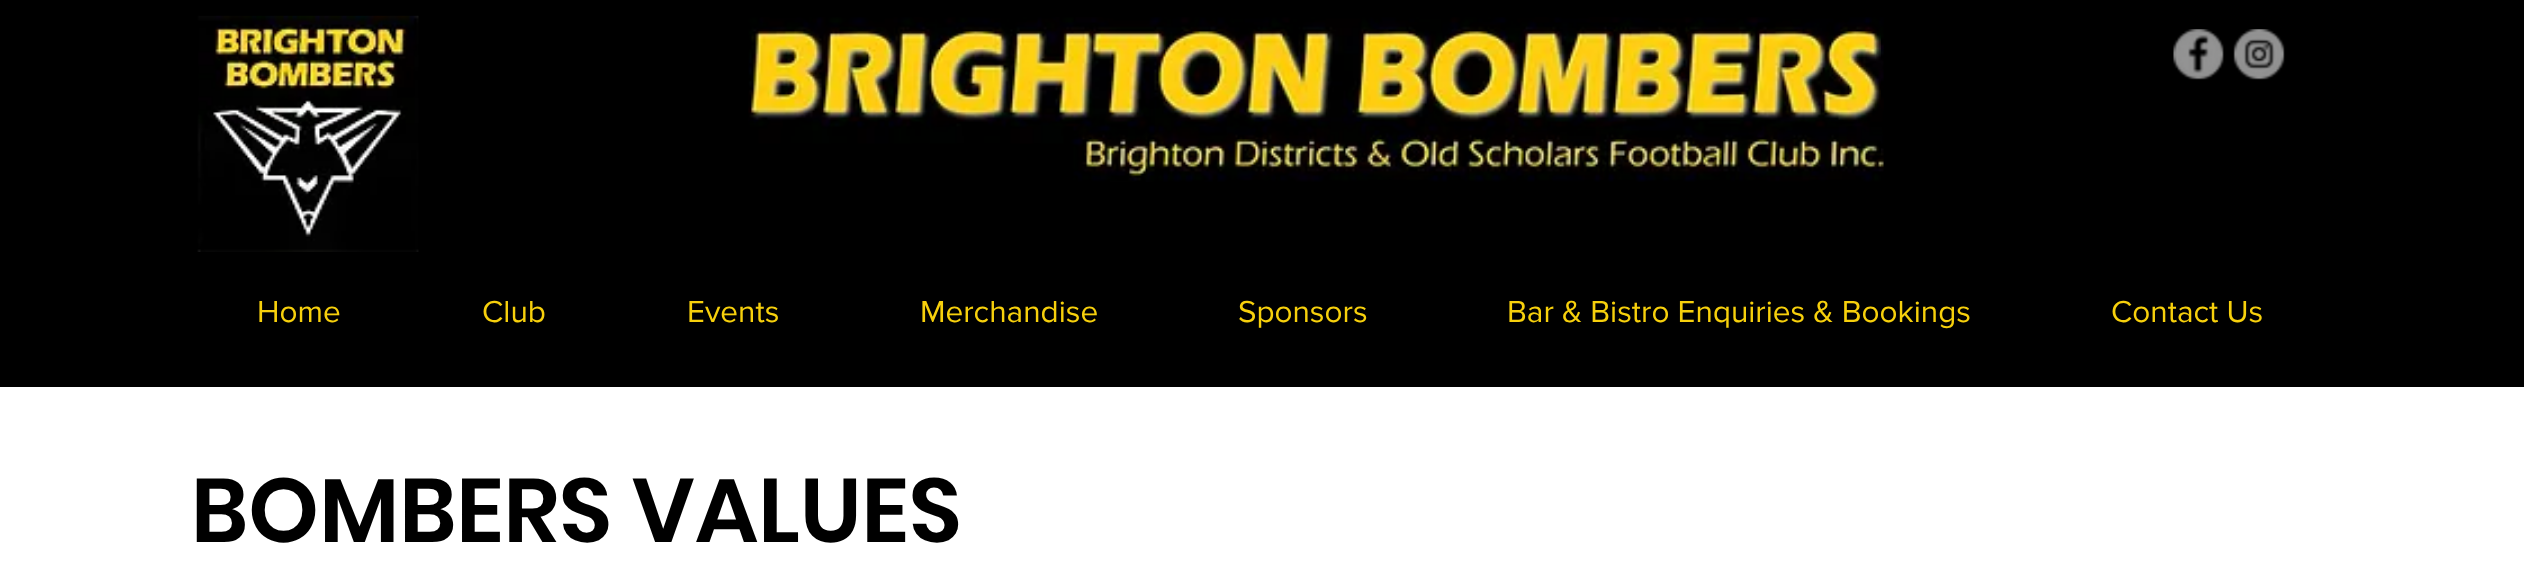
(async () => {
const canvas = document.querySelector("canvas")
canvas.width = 2524
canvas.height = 588
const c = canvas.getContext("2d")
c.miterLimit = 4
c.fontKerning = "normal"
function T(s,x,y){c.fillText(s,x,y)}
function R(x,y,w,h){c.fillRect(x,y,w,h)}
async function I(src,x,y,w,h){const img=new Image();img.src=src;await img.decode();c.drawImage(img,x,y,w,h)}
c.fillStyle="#fff"
R(0,0,2524,588)
c.fillStyle="#000"
R(0,0,2524,387)
await I("1.png",197,15,222,237)
await I("2.png",748,17,1136,165)
await I("3.png",2173,29,51,51)
await I("4.png",2233,29,52,51)
c.font="31.5px 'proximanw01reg'"
c.fillStyle="#f7d00c"
T("Home",257,322)
T("Club",482,322)
T("Events",687,322)
T("Merchandise",920,322)
T("Sponsors",1238,322)
T("Bar & Bistro Enquiries & Bookings",1507,322)
T("Contact Us",2111,322)
c.font="600 90px Poppins"
c.fillStyle="#000"
T("BOMBERS VALUES",191,542)
})()
